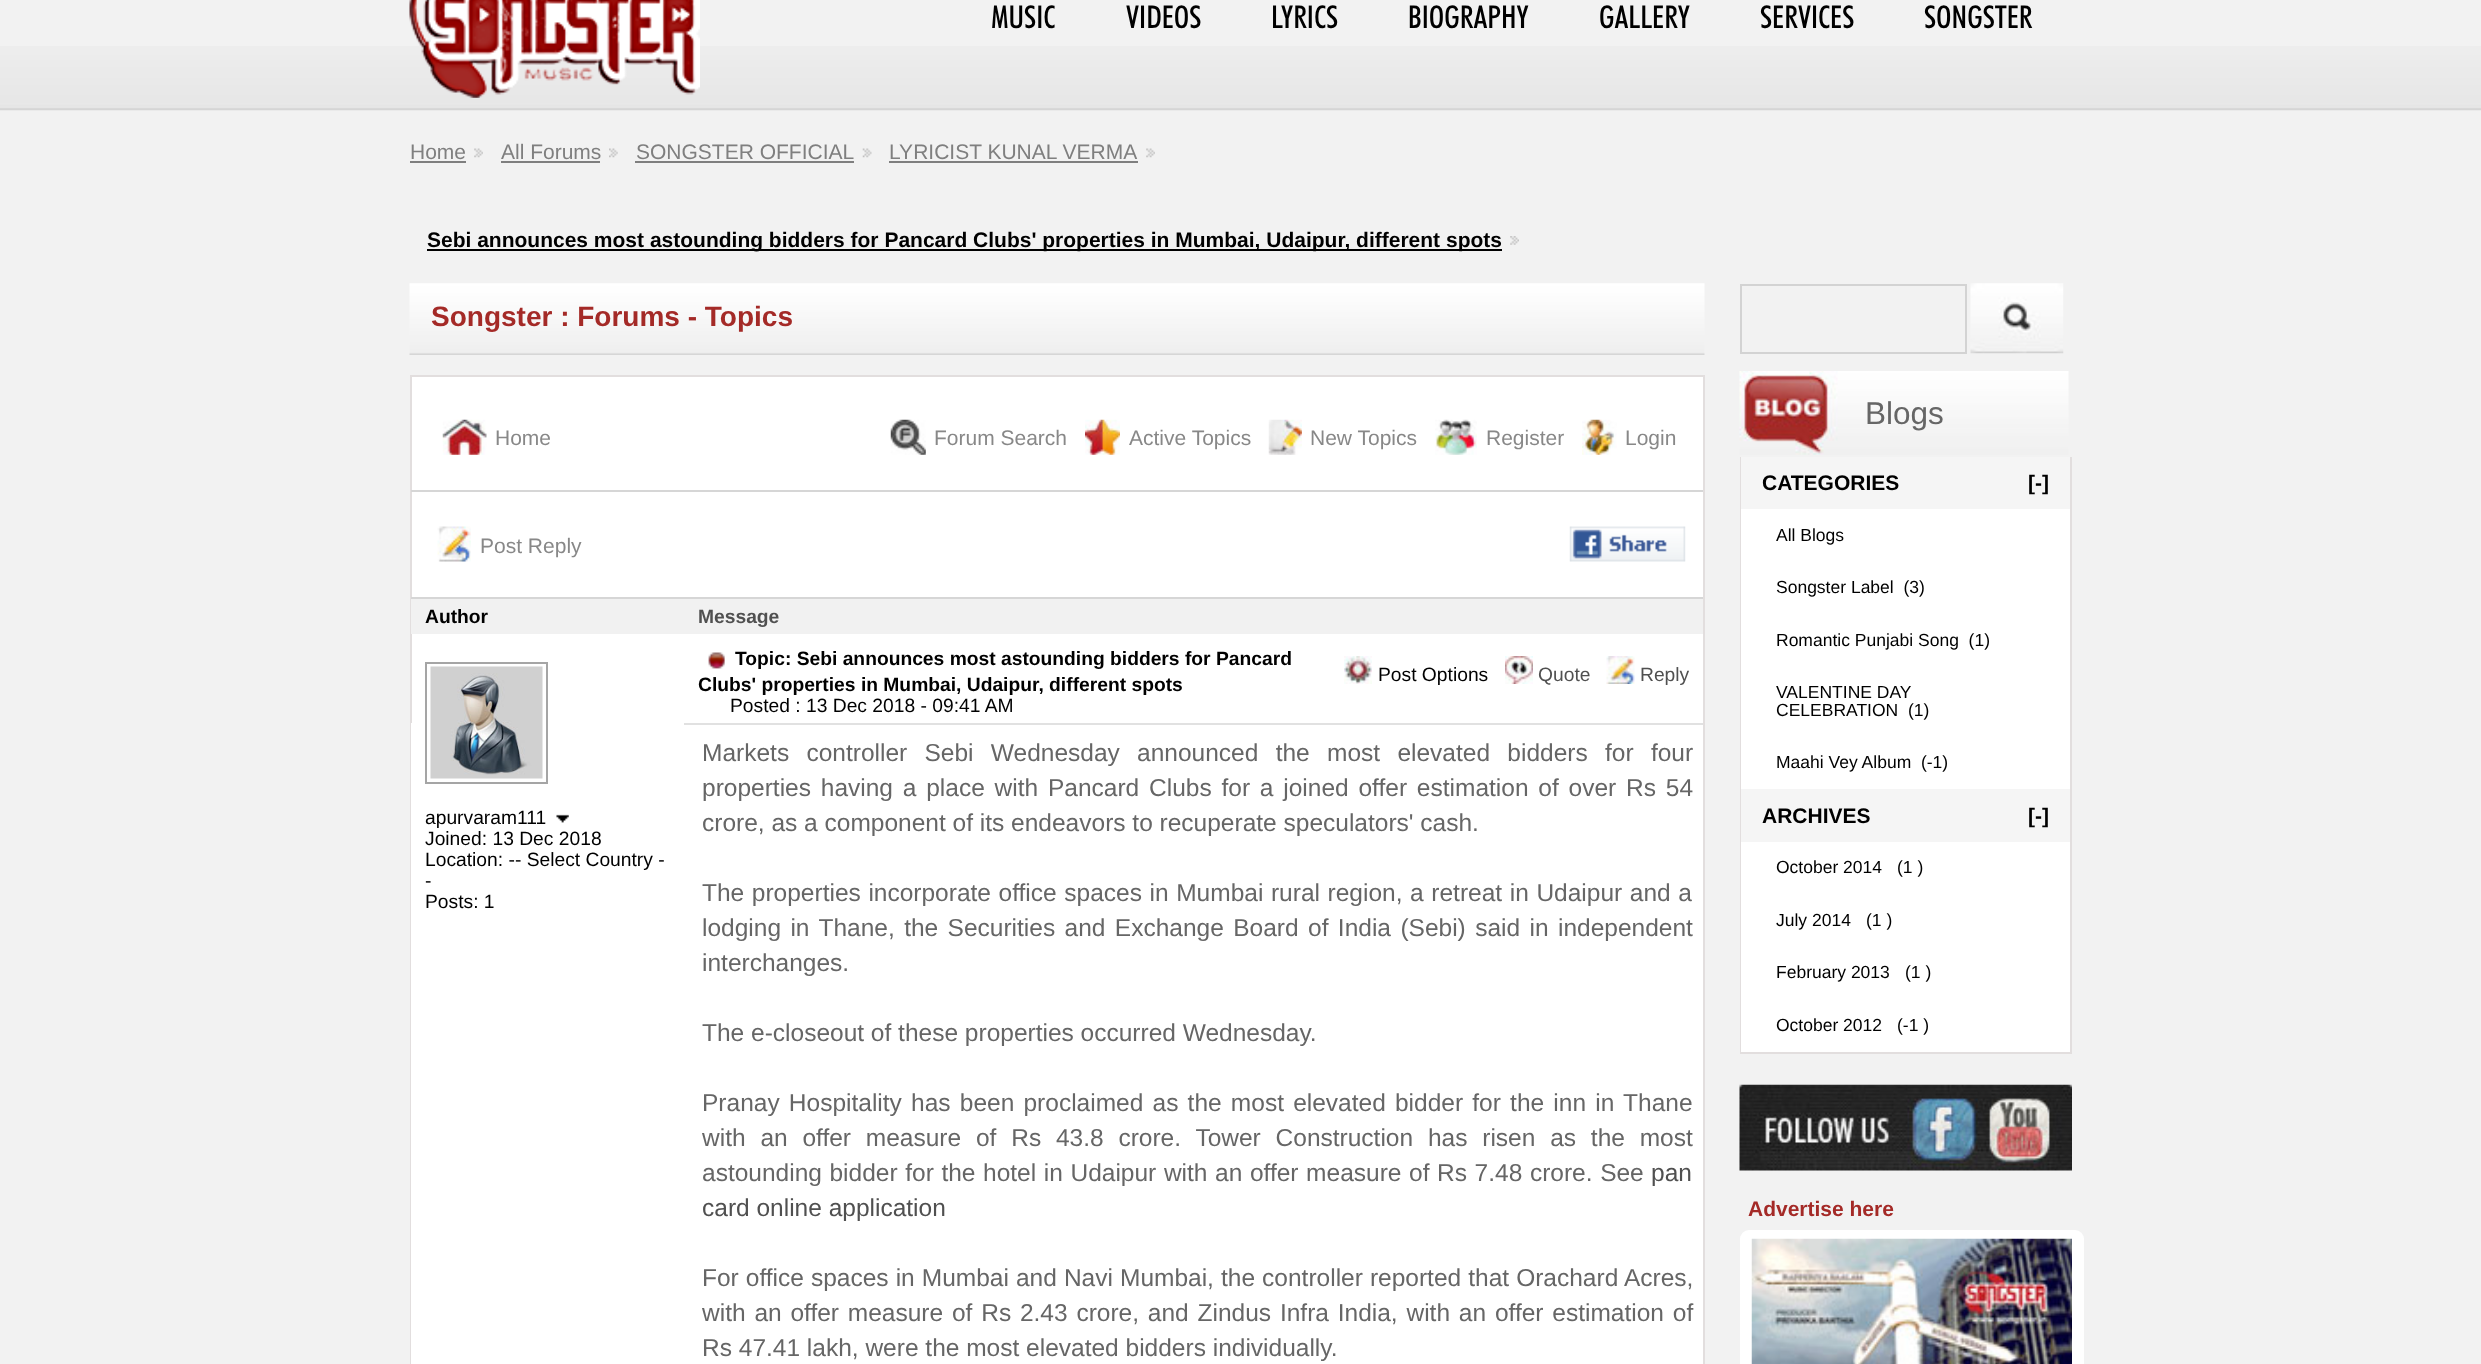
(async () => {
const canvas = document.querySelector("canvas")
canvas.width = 2481
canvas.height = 1364
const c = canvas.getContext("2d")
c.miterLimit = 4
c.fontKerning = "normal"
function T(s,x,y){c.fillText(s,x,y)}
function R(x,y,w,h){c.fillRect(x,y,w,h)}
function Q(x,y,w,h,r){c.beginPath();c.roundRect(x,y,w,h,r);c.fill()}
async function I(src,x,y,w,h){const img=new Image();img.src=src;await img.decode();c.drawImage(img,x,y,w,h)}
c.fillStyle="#f2f2f2"
R(0,0,2481,1364)
await I("1.png",0,46,2481,65)
await I("2.png",409,0,291,98)
c.font="500 31.5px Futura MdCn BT"
c.fillStyle="#000"
T("MUSIC",991,28)
T("VIDEOS",1126,28)
T("LYRICS",1271,28)
T("BIOGRAPHY",1408,28)
T("GALLERY",1599,28)
T("SERVICES",1760,28)
T("SONGSTER",1924,28)
await I("3.png",474,148,9,10)
c.font="21px Liberation Sans"
c.fillStyle="#7f7f7f"
T("Home",410,159)
R(410,161,56,2)
await I("4.png",609,148,9,10)
T("All Forums",501,159)
R(501,161,99,2)
await I("5.png",862,148,10,10)
T("SONGSTER OFFICIAL",636,159)
R(635,161,219,2)
await I("3.png",1146,148,9,10)
T("LYRICIST KUNAL VERMA",889,159)
R(889,161,249,2)
await I("6.png",1510,236,9,9)
c.fillStyle="#000"
R(427,249,1075,2)
c.font="bold 21px Liberation Sans"
T("Sebi announces most astounding bidders for Pancard Clubs' properties in Mumbai, Udaipur, different spots",427,247)
await I("7.png",409,283,1296,72)
c.font="bold 28px Liberation Sans"
c.fillStyle="#a42a27"
T("Songster : Forums - Topics",431,326)
c.fillStyle="#fff"
R(412,377,1291,346)
c.strokeStyle="#e2dede"
c.lineWidth=2
c.strokeRect(411,376,1293,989)
c.fillStyle="#d6d6d6"
R(411,490,1292,2)
await I("8.png",442,419,45,36)
c.font="21px Liberation Sans"
c.fillStyle="#888"
T("Home",495,445)
await I("9.png",890,419,36,36)
T("Forum Search",934,445)
await I("10.png",1085,419,35,36)
T("Active Topics",1129,445)
await I("11.png",1268,419,34,36)
T("New Topics",1310,445)
await I("12.png",1435,419,42,36)
T("Register",1486,445)
await I("13.png",1582,419,35,36)
T("Login",1625,445)
c.fillStyle="#d6d6d6"
R(411,597,1292,2)
await I("14.png",437,526,34,36)
c.fillStyle="#888"
T("Post Reply",480,553)
await I("15.png",1569,526,117,36)
c.fillStyle="#f1f1f1"
R(411,599,1292,35)
c.font="bold 19.25px Liberation Sans"
c.fillStyle="#000"
T("Author",425,623)
c.fillStyle="#505050"
T("Message",698,623)
await I("16.png",708,652,17,17)
c.fillStyle="#000"
T("Topic: Sebi announces most astounding bidders for Pancard",735,665)
T("Clubs' properties in Mumbai, Udaipur, different spots",698,691)
await I("17.png",1344,656,28,28)
c.font="19.25px Liberation Sans"
T("Post Options",1378,681)
await I("18.png",1505,656,28,28)
c.fillStyle="#505050"
T("Quote",1538,681)
await I("19.png",1606,656,29,28)
T("Reply",1640,681)
c.fillStyle="#000"
T("Posted : 13 Dec 2018 - 09:41 AM",730,712)
c.fillStyle="#fff"
R(411,723,1292,641)
c.strokeStyle="#a5a5a5"
c.strokeRect(426,663,121,120)
await I("20.png",430,666,113,113)
c.fillStyle="#000"
T("apurvaram111",425,824)
await I("21.png",556,814,13,9)
T("Joined: 13 Dec 2018",425,845)
T("Location: -- Select Country -",425,866)
T("-",425,887)
T("Posts: 1",425,908)
c.fillStyle="#e1e1e1"
R(684,723,1019,2)
c.wordSpacing="10.5px"
c.font="24.5px Liberation Sans"
c.fillStyle="#666"
T("Markets controller Sebi Wednesday announced the most elevated bidders for four",702,761)
c.wordSpacing="3px"
T("properties having a place with Pancard Clubs for a joined offer estimation of over Rs 54",702,796)
c.wordSpacing="0px"
T("crore, as a component of its endeavors to recuperate speculators' cash.",702,831)
c.wordSpacing="0.8px"
T("The properties incorporate office spaces in Mumbai rural region, a retreat in Udaipur and a",702,901)
c.wordSpacing="2.6px"
T("lodging in Thane, the Securities and Exchange Board of India (Sebi) said in independent",702,936)
c.wordSpacing="0px"
T("interchanges.",702,971)
T("The e-closeout of these properties occurred Wednesday.",702,1041)
c.wordSpacing="2.4px"
T("Pranay Hospitality has been proclaimed as the most elevated bidder for the inn in Thane",702,1111)
c.wordSpacing="8px"
T("with an offer measure of Rs 43.8 crore. Tower Construction has risen as the most",702,1146)
c.wordSpacing="0.8px"
T("astounding bidder for the hotel in Udaipur with an offer measure of Rs 7.48 crore. See",702,1181)
c.wordSpacing="0px"
c.fillStyle="#505050"
T("pan",1651,1181)
T("card online application",702,1216)
c.wordSpacing="0.25px"
c.fillStyle="#666"
T("For office spaces in Mumbai and Navi Mumbai, the controller reported that Orachard Acres,",702,1286)
c.wordSpacing="2px"
T("with an offer measure of Rs 2.43 crore, and Zindus Infra India, with an offer estimation of",702,1321)
c.wordSpacing="0px"
T("Rs 47.41 lakh, were the most elevated bidders individually.",702,1356)
c.strokeStyle="#d3d3d3"
c.strokeRect(1741,285,225,68)
await I("22.png",1970,283,94,71)
await I("23.png",1739,371,330,84)
c.font="31.5px Liberation Sans"
T("Blogs",1865,424)
c.fillStyle="#e2dede"
R(2070,457,2,597)
R(1740,1052,332,2)
R(1740,457,2,597)
c.fillStyle="#f5f5f5"
R(1741,457,329,52)
c.font="bold 21px Liberation Sans"
c.fillStyle="#000"
T("CATEGORIES",1762,490)
T("[-]",2028,490)
c.fillStyle="#fff"
R(1741,509,329,280)
c.font="17.5px Liberation Sans"
c.fillStyle="#000"
T("All Blogs",1776,541)
T("Songster Label  (3)",1776,593)
T("Romantic Punjabi Song  (1)",1776,646)
T("VALENTINE DAY",1776,698)
T("CELEBRATION  (1)",1776,716)
T("Maahi Vey Album  (-1)",1776,768)
c.fillStyle="#f5f5f5"
R(1741,789,329,53)
c.font="bold 21px Liberation Sans"
c.fillStyle="#000"
T("ARCHIVES",1762,823)
T("[-]",2028,823)
c.fillStyle="#fff"
R(1741,842,329,210)
c.font="17.5px Liberation Sans"
c.fillStyle="#000"
T("October 2014",1776,873)
T("(1 )",1897,873)
T("July 2014",1776,926)
T("(1 )",1866,926)
T("February 2013",1776,978)
T("(1 )",1905,978)
T("October 2012",1776,1031)
T("(-1 )",1897,1031)
await I("24.png",1739,1084,333,87)
c.font="bold 21px Liberation Sans"
c.fillStyle="#a42a27"
T("Advertise here",1748,1216)
c.fillStyle="#fff"
Q(1740,1230,344,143,9)
await I("25.png",1751,1238,321,126)
})()
